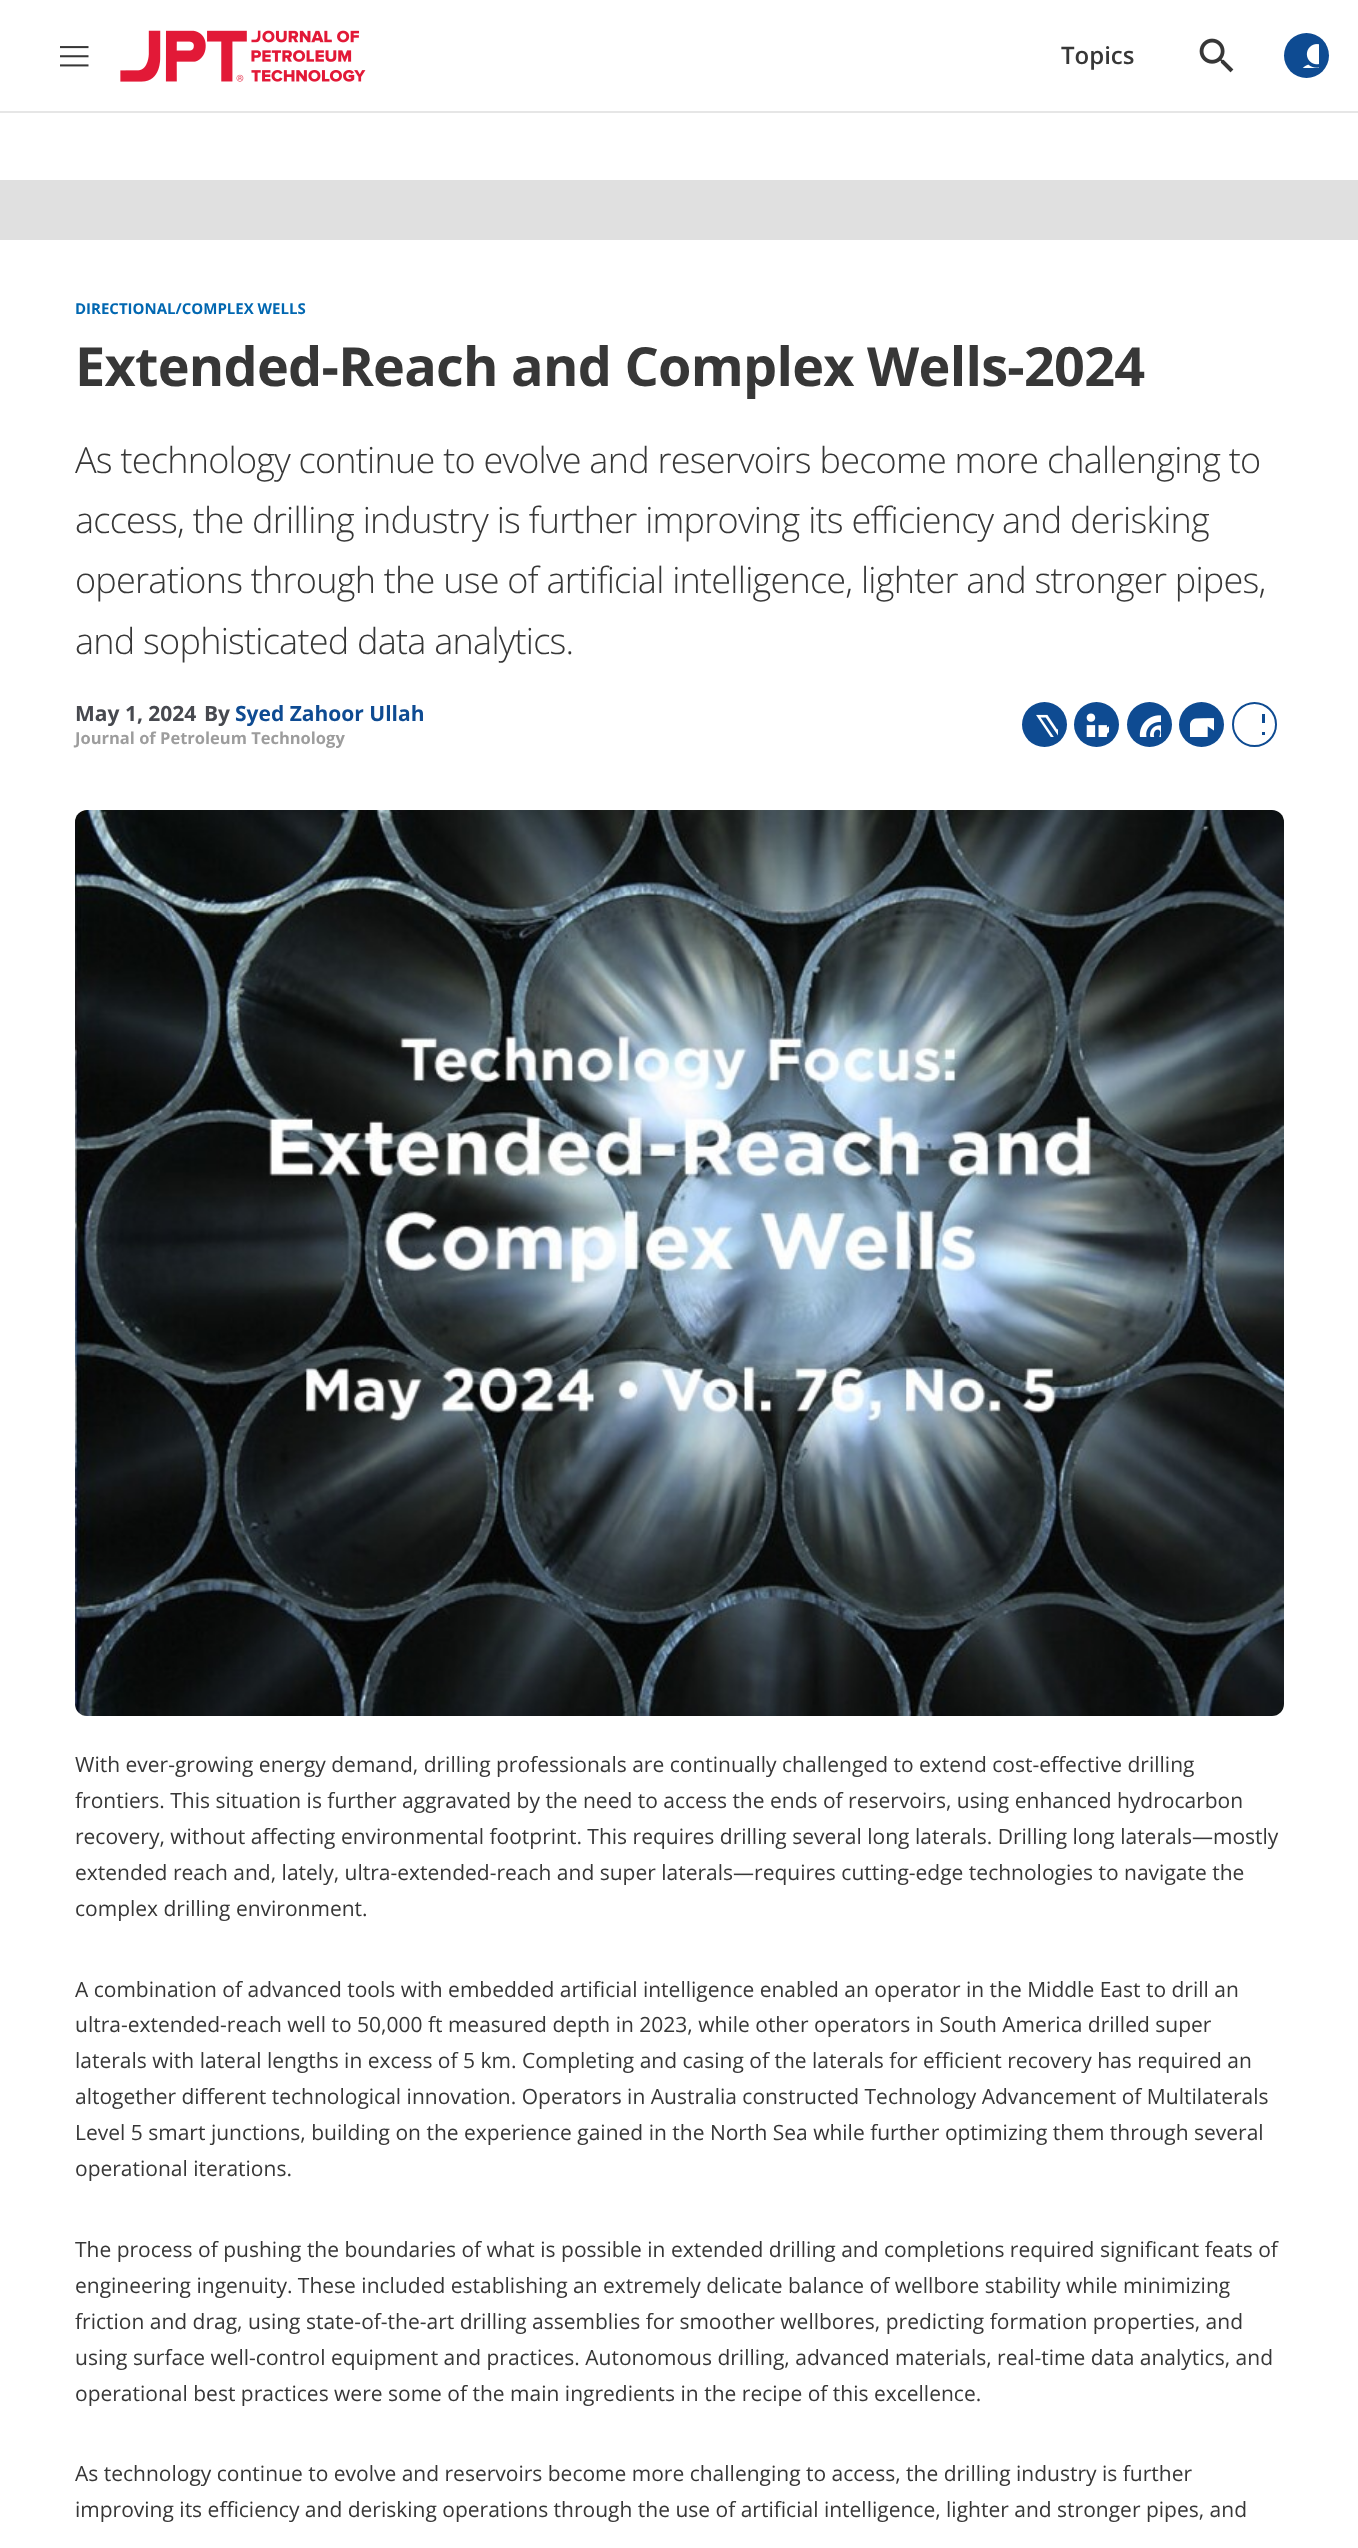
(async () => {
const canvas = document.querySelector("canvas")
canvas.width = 1358
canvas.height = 2548
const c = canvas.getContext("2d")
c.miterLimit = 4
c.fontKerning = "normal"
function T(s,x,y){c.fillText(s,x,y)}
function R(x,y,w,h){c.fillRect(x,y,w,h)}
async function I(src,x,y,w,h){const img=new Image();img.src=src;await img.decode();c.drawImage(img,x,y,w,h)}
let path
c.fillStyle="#fff"
R(0,0,1358,2548)
c.fillStyle="#e6e6e6"
R(0,111,1358,2)
await I("1.png",60,46,29,21)
await I("2.png",120,30,246,52)
c.font="600 24px Open Sans"
c.fillStyle="#373737"
T("Topics",1061,64)
await I("3.png",1199,38,35,35)
c.fillStyle="#0e4b92"
c.beginPath()
c.arc(1306.5,55.5,22.5,0,7)
c.fill()
await I("4.png",1302,44,17,24)
c.fillStyle="#e0e0e0"
R(0,180,1358,60)
c.font="bold 15px Open Sans"
c.fillStyle="#0167b1"
T("DIRECTIONAL/COMPLEX WELLS",75,314)
c.letterSpacing="-0.75px"
c.font="bold 54px Open Sans"
c.fillStyle="#373737"
T("Extended-Reach and Complex Wells-2024",75,386)
c.font="300 36px Open Sans"
T("As technology continue to evolve and reservoirs become more challenging to",75,473)
T("access, the drilling industry is further improving its efficiency and derisking",75,533)
T("operations through the use of artificial intelligence, lighter and stronger pipes,",75,593)
T("and sophisticated data analytics.",75,654)
c.letterSpacing="0px"
c.font="bold 21px Open Sans"
c.fillStyle="#47494f"
T("May 1, 2024",75,721)
T("By",204,721)
c.fillStyle="#0e4b92"
T("Syed Zahoor Ullah",235,721)
c.font="bold 16.5px Open Sans"
c.fillStyle="#9d9d9d"
T("Journal of Petroleum Technology",75,744)
c.fillStyle="#0e4b92"
c.beginPath()
c.arc(1044.5,724.5,22.5,0,7)
c.fill()
await I("5.png",1036,714,22,23)
c.beginPath()
c.arc(1096.5,724.5,22.5,0,7)
c.fill()
await I("6.png",1086,713,23,24)
c.beginPath()
c.arc(1149.5,724.5,22.5,0,7)
c.fill()
await I("7.png",1139,715,22,22)
c.beginPath()
c.arc(1201.5,724.5,22.5,0,7)
c.fill()
await I("8.png",1190,718,24,19)
c.beginPath()
c.arc(1254.5,724.5,21.5,0,7)
c.strokeStyle="#0e4b92"
c.lineWidth=2
c.stroke()
c.save()
c.beginPath()
c.rect(1244,714,21,21)
c.clip()
path = new Path2D("M1262 741v-9h8v6.5l-2.5 2.5zm0-18v-9h8v9z")
c.fill(path,"evenodd")
c.restore()
await I("9.png",75,810,1209,906)
c.font="21px Open Sans"
c.fillStyle="#373737"
T("With ever-growing energy demand, drilling professionals are continually challenged to extend cost-effective drilling",75,1772)
T("frontiers. This situation is further aggravated by the need to access the ends of reservoirs, using enhanced hydrocarbon",75,1808)
T("recovery, without affecting environmental footprint. This requires drilling several long laterals. Drilling long laterals—mostly",75,1844)
T("extended reach and, lately, ultra-extended-reach and super laterals—requires cutting-edge technologies to navigate the",75,1880)
T("complex drilling environment.",75,1916)
T("A combination of advanced tools with embedded artificial intelligence enabled an operator in the Middle East to drill an",75,1997)
T("ultra-extended-reach well to 50,000 ft measured depth in 2023, while other operators in South America drilled super",75,2032)
T("laterals with lateral lengths in excess of 5 km. Completing and casing of the laterals for efficient recovery has required an",75,2068)
T("altogether different technological innovation. Operators in Australia constructed Technology Advancement of Multilaterals",75,2104)
T("Level 5 smart junctions, building on the experience gained in the North Sea while further optimizing them through several",75,2140)
T("operational iterations.",75,2176)
T("The process of pushing the boundaries of what is possible in extended drilling and completions required significant feats of",75,2257)
T("engineering ingenuity. These included establishing an extremely delicate balance of wellbore stability while minimizing",75,2293)
T("friction and drag, using state-of-the-art drilling assemblies for smoother wellbores, predicting formation properties, and",75,2329)
T("using surface well-control equipment and practices. Autonomous drilling, advanced materials, real-time data analytics, and",75,2365)
T("operational best practices were some of the main ingredients in the recipe of this excellence.",75,2401)
T("As technology continue to evolve and reservoirs become more challenging to access, the drilling industry is further",75,2481)
T("improving its efficiency and derisking operations through the use of artificial intelligence, lighter and stronger pipes, and",75,2517)
})()
